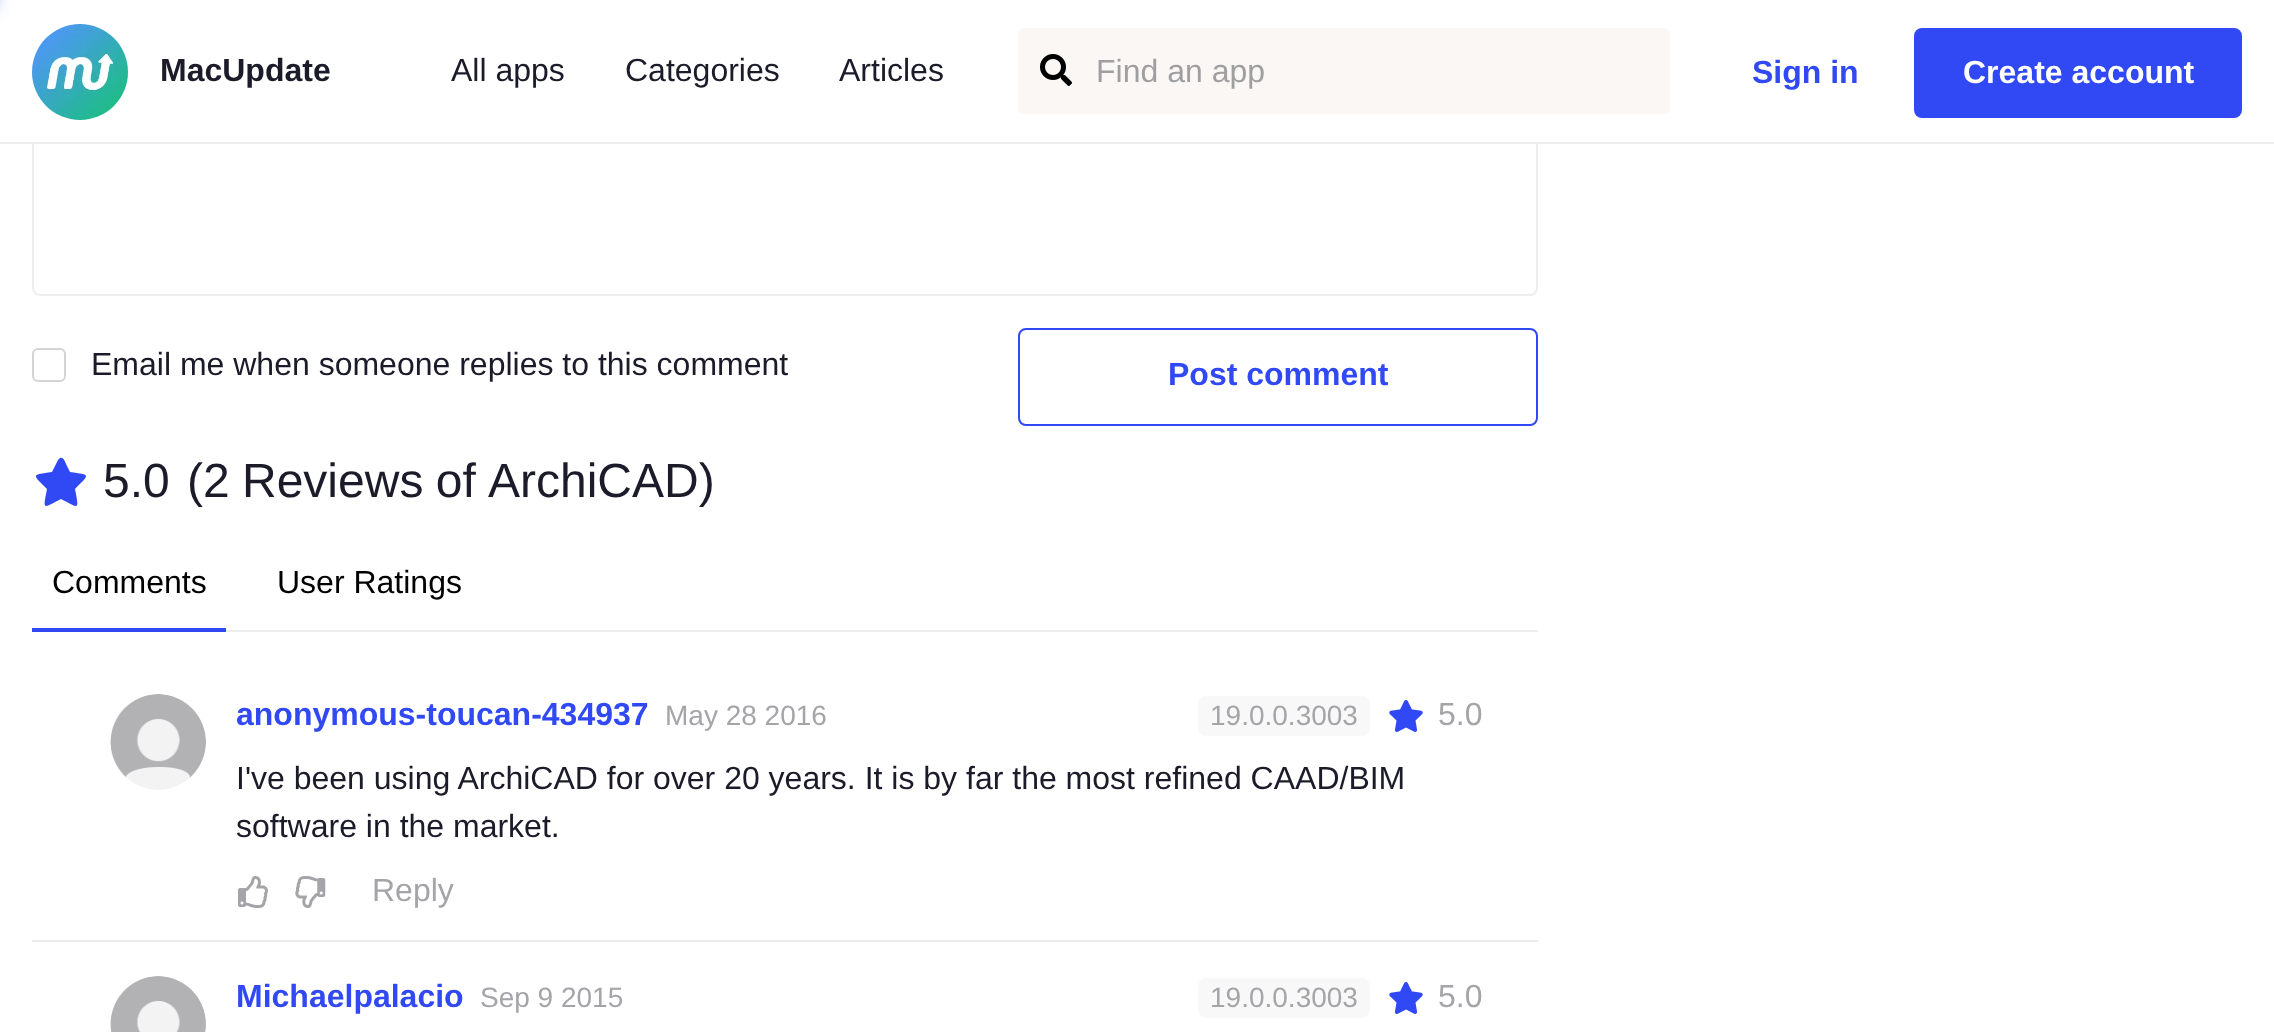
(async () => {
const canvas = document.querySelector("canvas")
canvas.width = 2274
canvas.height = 1032
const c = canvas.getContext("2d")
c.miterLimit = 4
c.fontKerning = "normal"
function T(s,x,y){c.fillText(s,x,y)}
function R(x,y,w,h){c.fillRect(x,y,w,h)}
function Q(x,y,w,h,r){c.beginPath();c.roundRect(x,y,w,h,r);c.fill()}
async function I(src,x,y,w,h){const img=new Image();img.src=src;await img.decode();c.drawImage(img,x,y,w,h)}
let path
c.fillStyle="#fff"
R(0,0,2274,1032)
c.fillStyle="#3049f4"
c.filter="blur(10px)"
c.beginPath()
c.rect(-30,-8,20,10)
c.fill()
c.filter="none"
c.filter="blur(10px)"
c.beginPath()
c.rect(-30,-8,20,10)
c.fill()
c.filter="none"
c.beginPath()
c.roundRect(33,25,1504,270,7)
c.strokeStyle="#eee"
c.lineWidth=2
c.stroke()
c.fillStyle="#fff"
R(32,24,1506,118)
c.fillStyle="#ededed"
R(0,142,2274,2)
await I("1.png",32,24,96,96)
c.font="bold 32px Liberation Sans"
c.fillStyle="#1b1b29"
T("MacUpdate",160,81)
c.font="32px Liberation Sans"
T("All apps",451,81)
T("Categories",625,81)
T("Articles",839,81)
c.fillStyle="#fbf7f5"
c.beginPath()
c.roundRect(1017,27,654,88,7)
c.fill()
c.strokeStyle="#fff"
c.stroke()
await I("2.png",1040,54,32,32)
c.fillStyle="#9f9fa2"
T("Find an app",1096,82)
c.font="bold 32px Liberation Sans"
c.fillStyle="#3049f4"
T("Sign in",1752,83)
Q(1914,28,328,90,8)
c.fillStyle="#fff"
T("Create account",1963,83)
c.beginPath()
c.roundRect(33,349,32,32,5)
c.strokeStyle="#d4d4d5"
c.stroke()
c.font="32px Liberation Sans"
c.fillStyle="#1b1b29"
T("Email me when someone replies to this comment",91,375)
c.beginPath()
c.roundRect(1019,329,518,96,7)
c.strokeStyle="#3049f4"
c.stroke()
c.font="bold 32px Liberation Sans"
c.fillStyle="#3049f4"
T("Post comment",1168,385)
path = new Path2D("M58 460l-6 12c-21 3-20 2-5 17c-4 21-5 20 14 10c19 10 18 11 14-10c15-15 16-14-5-17l-4-8c-1-2-2-7-6-6z")
c.fill(path)
c.font="48px Liberation Sans"
c.fillStyle="#1b1b29"
T("5.0",103,497)
T("(2",187,497)
c.wordSpacing="-1px"
T("Reviews of",242,497)
c.wordSpacing="0px"
T("ArchiCAD)",488,497)
c.fillStyle="#ededed"
R(226,630,1312,2)
c.font="32px Liberation Sans"
c.fillStyle="#000"
T("Comments",52,593)
c.fillStyle="#3049f4"
R(32,628,194,4)
c.fillStyle="#000"
T("User Ratings",277,593)
c.fillStyle="#ededed"
R(32,940,1506,2)
await I("3.png",110,694,96,96)
c.font="bold 32px Liberation Sans"
c.fillStyle="#3049f4"
T("anonymous-toucan-434937",236,725)
c.font="28px Liberation Sans"
c.fillStyle="#a4a4a9"
T("May 28 2016",665,725)
c.fillStyle="#f8f8f8"
Q(1198,696,172,40,8)
c.fillStyle="#a4a4a9"
T("19.0.0.3003",1210,725)
await I("4.png",1389,700,34,32)
c.font="32px Liberation Sans"
T("5.0",1438,725)
c.fillStyle="#1b1b29"
T("I've been using ArchiCAD for over 20 years. It is by far the most refined CAAD/BIM",236,789)
T("software in the market.",236,837)
await I("5.png",238,876,30,32)
await I("6.png",295,876,31,32)
c.fillStyle="#a4a4a9"
T("Reply",372,901)
await I("7.png",110,976,96,56)
c.font="bold 32px Liberation Sans"
c.fillStyle="#3049f4"
T("Michaelpalacio",236,1007)
c.font="28px Liberation Sans"
c.fillStyle="#a4a4a9"
T("Sep 9 2015",480,1007)
c.fillStyle="#f8f8f8"
Q(1198,978,172,40,8)
c.fillStyle="#a4a4a9"
T("19.0.0.3003",1210,1007)
await I("4.png",1389,982,34,32)
c.font="32px Liberation Sans"
T("5.0",1438,1007)
})()
